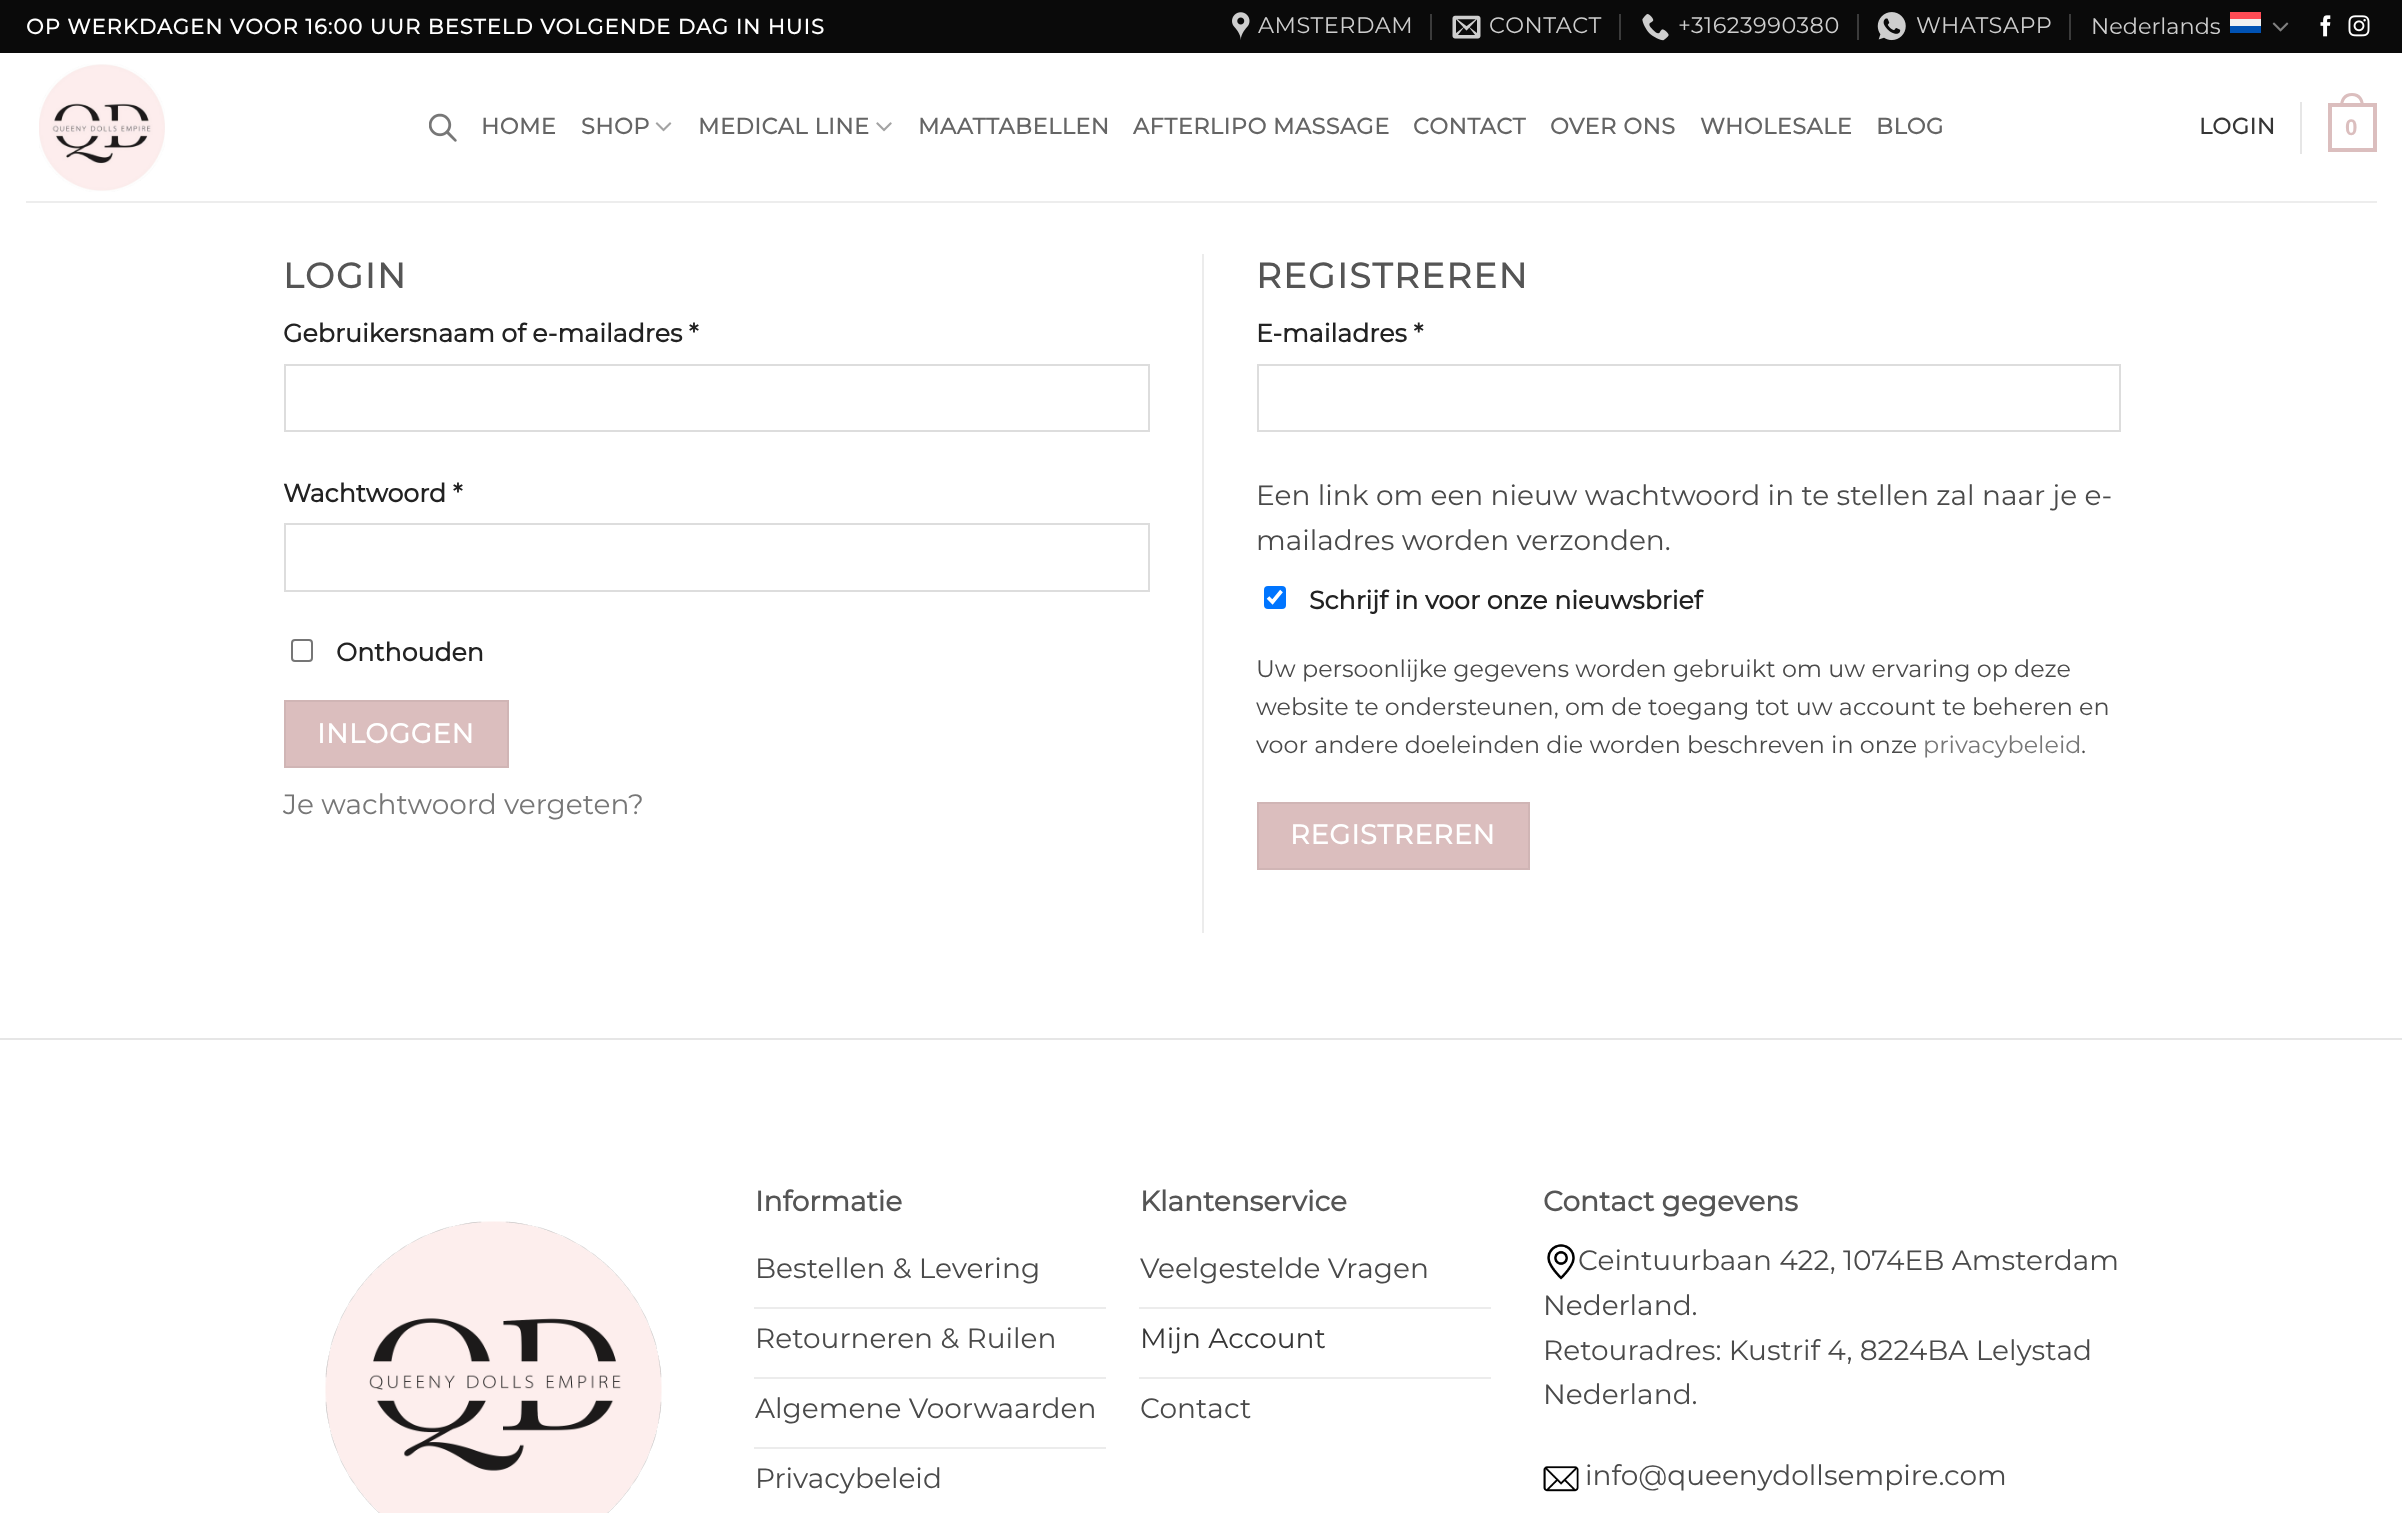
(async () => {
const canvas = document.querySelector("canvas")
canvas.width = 2402
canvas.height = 1513
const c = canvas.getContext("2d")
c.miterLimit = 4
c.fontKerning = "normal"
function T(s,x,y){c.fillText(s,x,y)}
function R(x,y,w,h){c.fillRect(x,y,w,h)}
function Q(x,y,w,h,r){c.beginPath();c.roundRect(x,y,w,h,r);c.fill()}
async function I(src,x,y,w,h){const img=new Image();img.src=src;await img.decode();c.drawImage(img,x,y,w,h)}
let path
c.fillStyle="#fff"
R(0,0,2402,1513)
c.fillStyle="#0a0a0a"
R(0,0,2402,53)
c.letterSpacing="1.05px"
c.font="bold 21px Montserrat"
c.fillStyle="#fff"
T("OP WERKDAGEN VOOR 16:00 UUR BESTELD VOLGENDE DAG IN HUIS",26,34)
await I("1.png",1232,12,18,28)
c.letterSpacing="0.5px"
c.font="22.4px Montserrat"
c.fillStyle="#cecece"
T("AMSTERDAM",1258,33)
c.fillStyle="#3b3b3b"
R(1430,14,2,26)
await I("2.png",1452,15,29,24)
c.fillStyle="#cecece"
T("CONTACT",1489,33)
c.fillStyle="#3b3b3b"
R(1619,14,2,26)
await I("3.png",1642,14,27,27)
c.fillStyle="#cecece"
T("+31623990380",1678,33)
c.fillStyle="#3b3b3b"
R(1857,14,2,26)
await I("4.png",1877,12,29,29)
c.fillStyle="#cecece"
T("WHATSAPP",1916,33)
c.fillStyle="#3b3b3b"
R(2069,14,2,26)
c.letterSpacing="0px"
c.fillStyle="#cecece"
T("Nederlands",2091,34)
c.fillStyle="#f0f0f0"
R(2230,19,31,7)
c.fillStyle="#0052b4"
R(2230,26,31,7)
c.fillStyle="#ff4b55"
R(2230,12,31,7)
await I("5.png",2272,22,17,10)
await I("6.png",2320,15,11,22)
await I("7.png",2348,15,22,22)
await I("8.png",39,64,126,128)
await I("9.png",429,113,28,29)
c.letterSpacing="0.5px"
c.font="bold 22.4px Montserrat"
c.fillStyle="#656565"
T("HOME",481,134)
T("SHOP",581,134)
await I("10.png",655,122,17,10)
T("MEDICAL LINE",698,134)
await I("11.png",876,122,16,10)
T("MAATTABELLEN",918,134)
T("AFTERLIPO MASSAGE",1133,134)
T("CONTACT",1413,134)
T("OVER ONS",1550,134)
T("WHOLESALE",1700,134)
T("BLOG",1876,134)
c.fillStyle="#363636"
T("LOGIN",2199,134)
c.fillStyle="#e6e6e6"
R(2300,102,2,52)
c.strokeStyle="#dbbebe"
c.lineWidth=4
c.strokeRect(2330,105,45,45)
c.fillStyle="#dbbebe"
path = new Path2D("M2352 93c8.5 0 12 6 12 14h-24c0-8 3.5-14 12-14zm0 3c6.5 0 9 5 9 11h-18c0-6 2.5-11 9-11z")
c.fill(path,"evenodd")
c.font="bold 22.4px Liberation Sans"
T("0",2345,135)
c.fillStyle="#ededed"
R(26,201,2351,2)
c.letterSpacing="1.75px"
c.font="bold 35px Montserrat"
c.fillStyle="#555"
T("LOGIN",283,288)
c.letterSpacing="0px"
c.font="bold 25.25px Montserrat"
c.fillStyle="#222"
T("Gebruikersnaam of e-mailadres *",283,342)
c.strokeStyle="#ddd"
c.lineWidth=2
c.strokeRect(285,365,864,66)
T("Wachtwoord *",283,502)
c.strokeRect(285,524,864,67)
c.beginPath()
c.roundRect(292,640,20,21,3)
c.strokeStyle="#767676"
c.stroke()
T("Onthouden",336,661)
c.fillStyle="#dbbebe"
c.beginPath()
c.rect(285,701,223,66)
c.fill()
c.strokeStyle="#d0b5b5"
c.stroke()
c.letterSpacing="0.75px"
c.font="bold 27.25px Montserrat"
c.fillStyle="#fff"
T("INLOGGEN",317,743)
c.letterSpacing="0px"
c.font="28px Montserrat"
c.fillStyle="#777"
T("Je wachtwoord vergeten?",283,814)
c.fillStyle="#ececec"
R(1202,254,2,679)
c.letterSpacing="1.75px"
c.font="bold 35px Montserrat"
c.fillStyle="#555"
T("REGISTREREN",1256,288)
c.letterSpacing="0px"
c.font="bold 25.25px Montserrat"
c.fillStyle="#222"
T("E-mailadres *",1256,342)
c.strokeStyle="#ddd"
c.strokeRect(1258,365,862,66)
c.font="28px Montserrat"
c.fillStyle="#4a4a4a"
T("Een link om een nieuw wachtwoord in te stellen zal naar je e-",1256,505)
T("mailadres worden verzonden.",1256,550)
c.fillStyle="#0075ff"
Q(1264,586,22,23,4)
path = new Path2D("M1268 597.5l4.5 4.5l9-11")
c.strokeStyle="#fff"
c.lineWidth=3.6
c.stroke(path)
c.font="bold 25.25px Montserrat"
c.fillStyle="#222"
T("Schrijf in voor onze nieuwsbrief",1309,609)
c.font="23.8px Montserrat"
c.fillStyle="#4a4a4a"
T("Uw persoonlijke gegevens worden gebruikt om uw ervaring op deze",1256,677)
T("website te ondersteunen, om de toegang tot uw account te beheren en",1256,715)
T("voor andere doeleinden die worden beschreven in onze",1256,753)
c.fillStyle="#777"
T("privacybeleid",1923,753)
c.fillStyle="#4a4a4a"
T(".",2081,753)
c.fillStyle="#dbbebe"
c.beginPath()
c.rect(1258,803,271,66)
c.fill()
c.strokeStyle="#d0b5b5"
c.lineWidth=2
c.stroke()
c.letterSpacing="0.75px"
c.font="bold 27.25px Montserrat"
c.fillStyle="#fff"
T("REGISTREREN",1290,844)
c.fillStyle="#e6e6e6"
R(0,1038,2402,2)
await I("12.png",325,1221,337,292)
c.letterSpacing="0px"
c.font="bold 28px Montserrat"
c.fillStyle="#555"
T("Informatie",755,1211)
c.fillStyle="#ececec"
R(754,1307,352,2)
c.font="28px Montserrat"
c.fillStyle="#4a4a4a"
T("Bestellen & Levering",755,1278)
c.fillStyle="#ececec"
R(754,1377,352,2)
c.fillStyle="#4a4a4a"
T("Retourneren & Ruilen",755,1348)
c.fillStyle="#ececec"
R(754,1447,352,2)
c.fillStyle="#4a4a4a"
T("Algemene Voorwaarden",755,1418)
T("Privacybeleid",755,1488)
c.font="bold 28px Montserrat"
c.fillStyle="#555"
T("Klantenservice",1140,1211)
c.fillStyle="#ececec"
R(1139,1307,352,2)
c.font="28px Montserrat"
c.fillStyle="#4a4a4a"
T("Veelgestelde Vragen",1140,1278)
c.fillStyle="#ececec"
R(1139,1377,352,2)
c.fillStyle="#363636"
T("Mijn Account",1140,1348)
c.fillStyle="#4a4a4a"
T("Contact",1140,1418)
c.font="bold 28px Montserrat"
c.fillStyle="#555"
T("Contact gegevens",1543,1211)
await I("13.png",1547,1244,28,36)
c.font="28px Montserrat"
c.fillStyle="#4a4a4a"
T("Ceintuurbaan 422, 1074EB Amsterdam",1578,1270)
T("Nederland.",1543,1315)
T("Retouradres: Kustrif 4, 8224BA Lelystad",1543,1360)
T("Nederland.",1543,1404)
await I("14.png",1543,1466,36,26)
T("info@queenydollsempire.com",1585,1485)
})()
